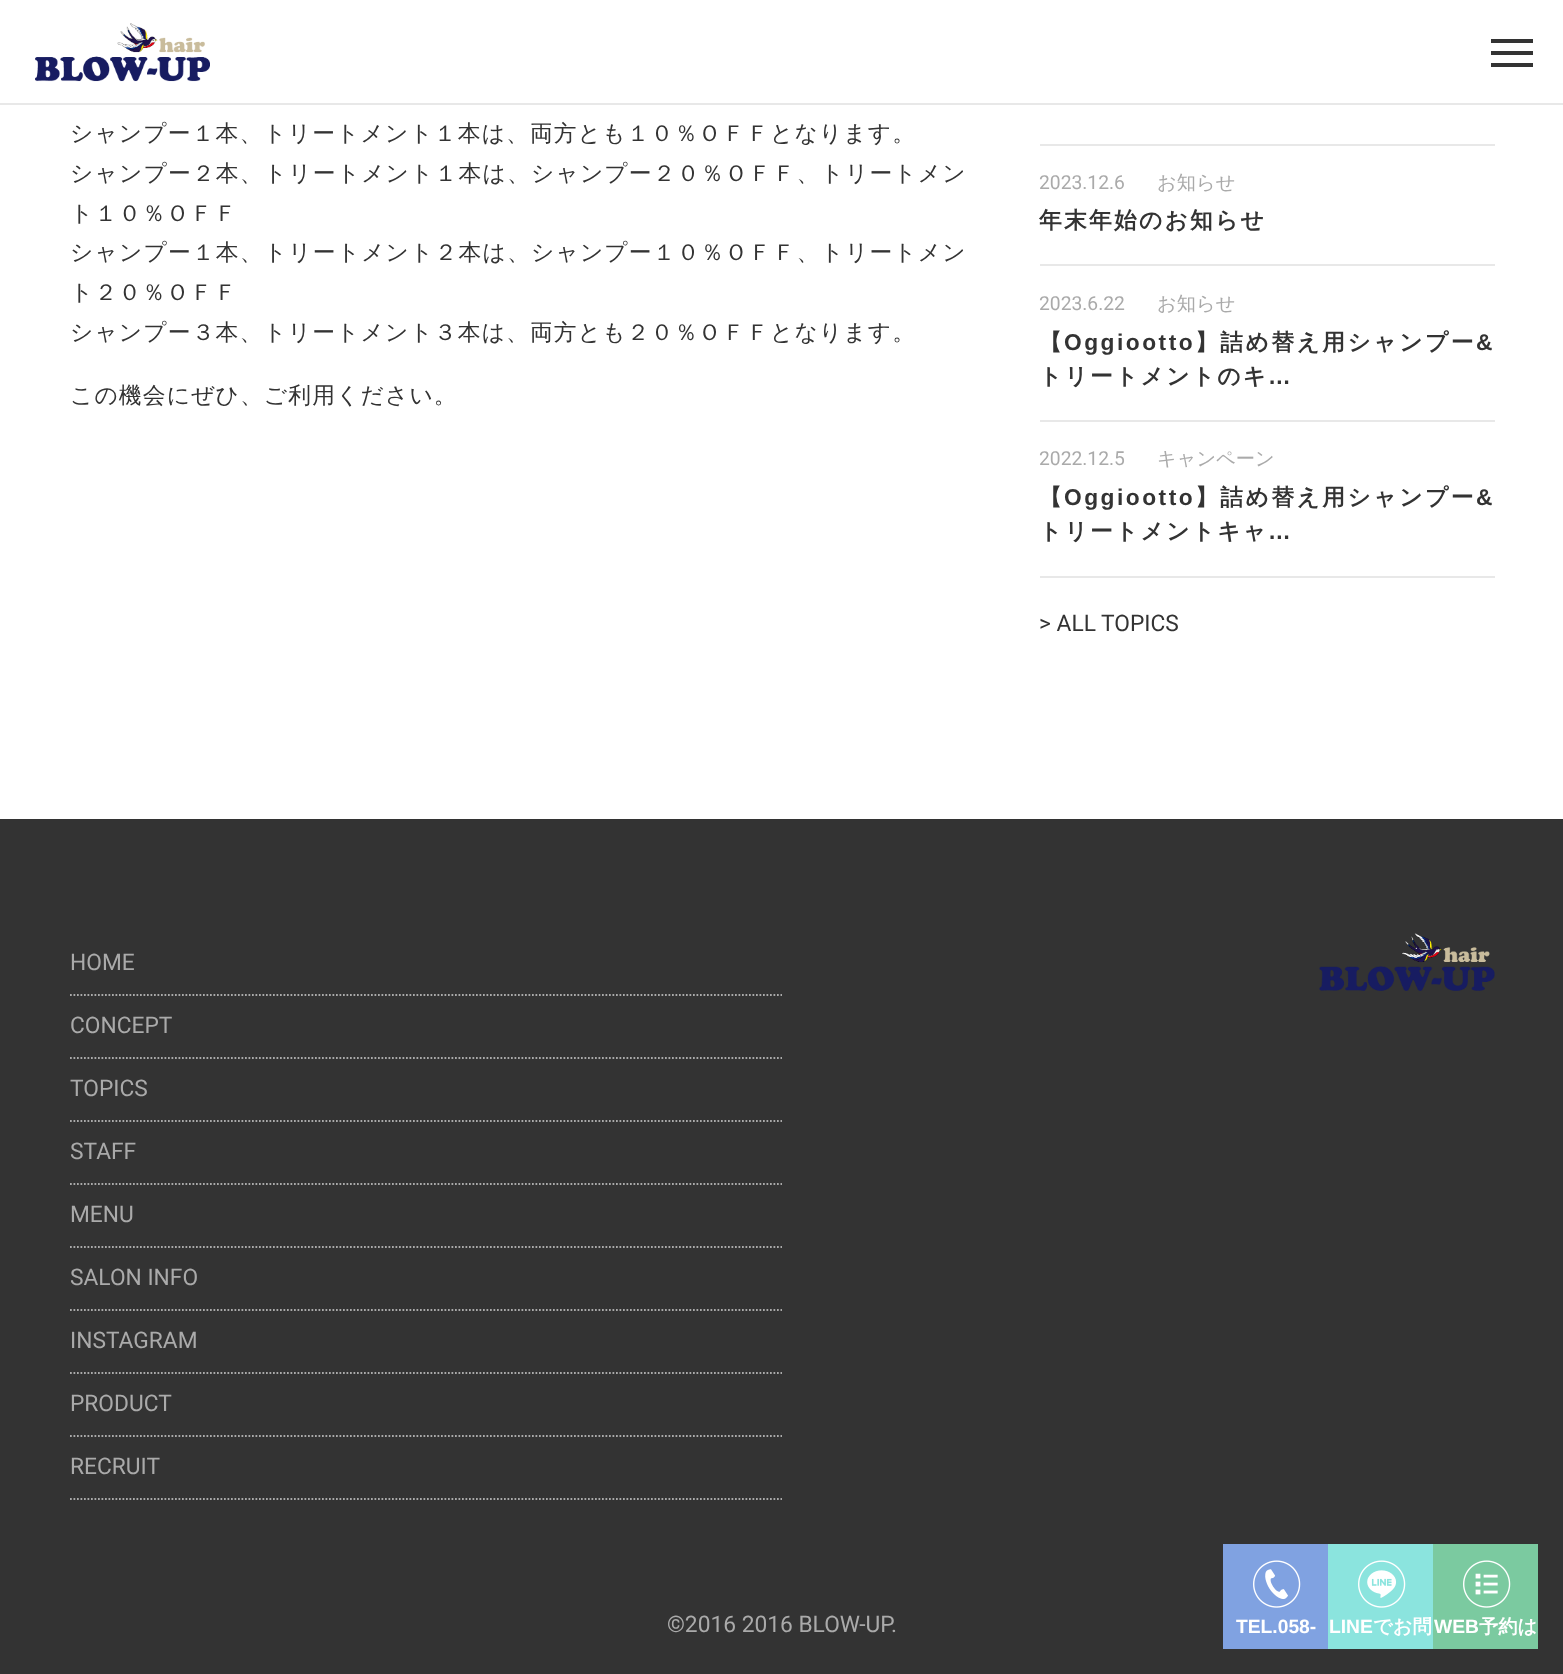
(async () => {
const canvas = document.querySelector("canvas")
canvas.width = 1563
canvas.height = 1674
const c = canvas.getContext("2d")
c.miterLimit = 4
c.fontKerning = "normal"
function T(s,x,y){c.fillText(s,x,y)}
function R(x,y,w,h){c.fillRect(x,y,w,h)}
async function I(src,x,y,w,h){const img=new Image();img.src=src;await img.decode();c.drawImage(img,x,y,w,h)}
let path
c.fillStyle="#fff"
R(0,0,1563,1674)
c.fillStyle="#e8e8e8"
R(0,103,1563,2)
await I("1.png",35,23,175,59)
c.fillStyle="#333"
R(1491,39,42,4)
R(1491,51,42,4)
R(1491,63,42,4)
c.letterSpacing="1.15px"
c.font="500 22.75px WenQuanYi Zen Hei"
T("シャンプー１本、トリートメント１本は、両方とも１０％ＯＦＦとなります。",70,141)
c.letterSpacing="1.2px"
T("シャンプー２本、トリートメント１本は、シャンプー２０％ＯＦＦ、トリートメン",70,181)
c.letterSpacing="1.15px"
T("ト１０％ＯＦＦ",70,221)
c.letterSpacing="1.2px"
T("シャンプー１本、トリートメント２本は、シャンプー１０％ＯＦＦ、トリートメン",70,260)
c.letterSpacing="1.15px"
T("ト２０％ＯＦＦ",70,300)
T("シャンプー３本、トリートメント３本は、両方とも２０％ＯＦＦとなります。",70,340)
T("この機会にぜひ、ご利用ください。",70,403)
c.fillStyle="#e8e8e8"
R(1040,144,455,2)
R(1040,264,455,2)
c.letterSpacing="0px"
c.font="19.25px Roboto"
c.fillStyle="#aaa"
T("2023.12.6",1039,189)
c.font="500 19.25px WenQuanYi Zen Hei"
T("お知らせ",1157,189)
c.letterSpacing="2.25px"
c.font="bold 22.75px WenQuanYi Zen Hei"
c.fillStyle="#333"
T("年末年始のお知らせ",1039,228)
c.fillStyle="#e8e8e8"
R(1040,420,455,2)
c.letterSpacing="0px"
c.font="19.25px Roboto"
c.fillStyle="#aaa"
T("2023.6.22",1039,310)
c.font="500 19.25px WenQuanYi Zen Hei"
T("お知らせ",1157,310)
c.letterSpacing="2.5px"
c.font="bold 22.75px WenQuanYi Zen Hei"
c.fillStyle="#333"
T("【",1039,350)
c.font="bold 22.75px Liberation Sans"
T("Oggiootto",1064,350)
c.font="bold 22.75px WenQuanYi Zen Hei"
T("】詰め替え用シャンプー",1195,350)
c.font="bold 22.75px Liberation Sans"
T("&",1476,350)
c.letterSpacing="2.25px"
c.font="bold 22.75px WenQuanYi Zen Hei"
T("トリートメントのキ",1039,384)
c.font="bold 22.75px Liberation Sans"
T("…",1268,384)
c.fillStyle="#e8e8e8"
R(1040,576,455,2)
c.letterSpacing="0px"
c.font="19.25px Roboto"
c.fillStyle="#aaa"
T("2022.12.5",1039,465)
c.font="500 19.25px WenQuanYi Zen Hei"
T("キャンペーン",1157,465)
c.letterSpacing="2.5px"
c.font="bold 22.75px WenQuanYi Zen Hei"
c.fillStyle="#333"
T("【",1039,505)
c.font="bold 22.75px Liberation Sans"
T("Oggiootto",1064,505)
c.font="bold 22.75px WenQuanYi Zen Hei"
T("】詰め替え用シャンプー",1195,505)
c.font="bold 22.75px Liberation Sans"
T("&",1476,505)
c.letterSpacing="2.25px"
c.font="bold 22.75px WenQuanYi Zen Hei"
T("トリートメントキャ",1039,539)
c.font="bold 22.75px Liberation Sans"
T("…",1268,539)
c.letterSpacing="0px"
c.font="22.75px Roboto"
T("> ALL TOPICS",1039,631)
R(0,819,1563,855)
path = new Path2D("M70 995h712")
c.strokeStyle="#aaa"
c.lineWidth=1.8
c.setLineDash([1.75,1.75])
c.stroke(path)
c.fillStyle="#aaa"
T("HOME",70,970)
path = new Path2D("M70 1058h712")
c.stroke(path)
T("CONCEPT",70,1033)
path = new Path2D("M70 1121h712")
c.stroke(path)
T("TOPICS",70,1096)
path = new Path2D("M70 1184h712")
c.stroke(path)
T("STAFF",70,1159)
path = new Path2D("M70 1247h712")
c.stroke(path)
T("MENU",70,1222)
path = new Path2D("M70 1310h712")
c.stroke(path)
T("SALON INFO",70,1285)
path = new Path2D("M70 1373h712")
c.stroke(path)
T("INSTAGRAM",70,1348)
path = new Path2D("M70 1436h712")
c.stroke(path)
T("PRODUCT",70,1411)
path = new Path2D("M70 1499h712")
c.stroke(path)
T("RECRUIT",70,1474)
await I("2.png",1319,933,176,58)
T("©2016 2016 BLOW-UP.",667,1632)
c.fillStyle="#80a2e1"
R(1223,1544,105,105)
await I("3.png",1253,1560,48,48)
c.font="bold 19.25px Liberation Sans"
c.fillStyle="#fff"
T("TEL.058-",1236,1633)
c.fillStyle="#8be4de"
R(1328,1544,105,105)
await I("4.png",1358,1560,48,48)
c.fillStyle="#fff"
T("LINE",1329,1633)
c.font="bold 19.25px WenQuanYi Zen Hei"
T("でお問",1373,1633)
c.fillStyle="#7bcaa0"
R(1433,1544,105,105)
await I("5.png",1463,1560,48,48)
c.font="bold 19.25px Liberation Sans"
c.fillStyle="#fff"
T("WEB",1434,1633)
c.font="bold 19.25px WenQuanYi Zen Hei"
T("予約は",1479,1633)
})()
